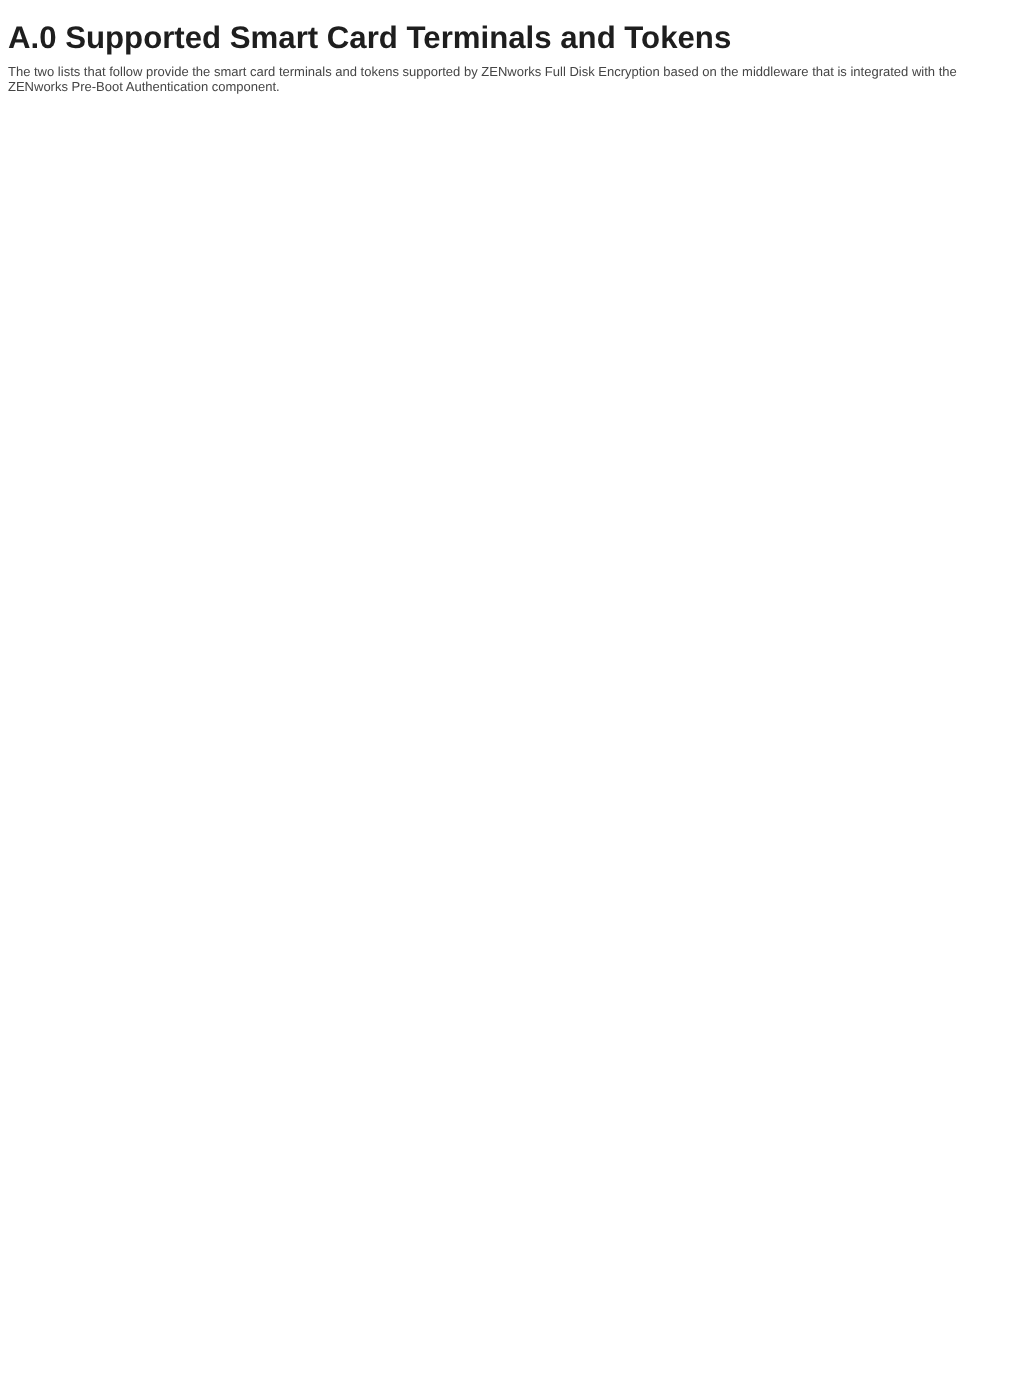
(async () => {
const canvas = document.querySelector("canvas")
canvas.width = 1020
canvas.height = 1377
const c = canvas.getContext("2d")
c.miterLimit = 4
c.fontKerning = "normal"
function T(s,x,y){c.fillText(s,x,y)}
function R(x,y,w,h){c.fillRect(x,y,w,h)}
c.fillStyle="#fff"
R(0,0,1020,1377)
c.font="bold 31.2px Liberation Sans"
c.fillStyle="#1e1e1e"
T("A.0 Supported Smart Card Terminals and Tokens",8,48)
c.font="13px Liberation Sans"
c.fillStyle="#454545"
T("The two lists that follow provide the smart card terminals and tokens supported by ZENworks Full Disk Encryption based on the middleware that is integrated with the",8,76)
T("ZENworks Pre-Boot Authentication component.",8,91)
})()
